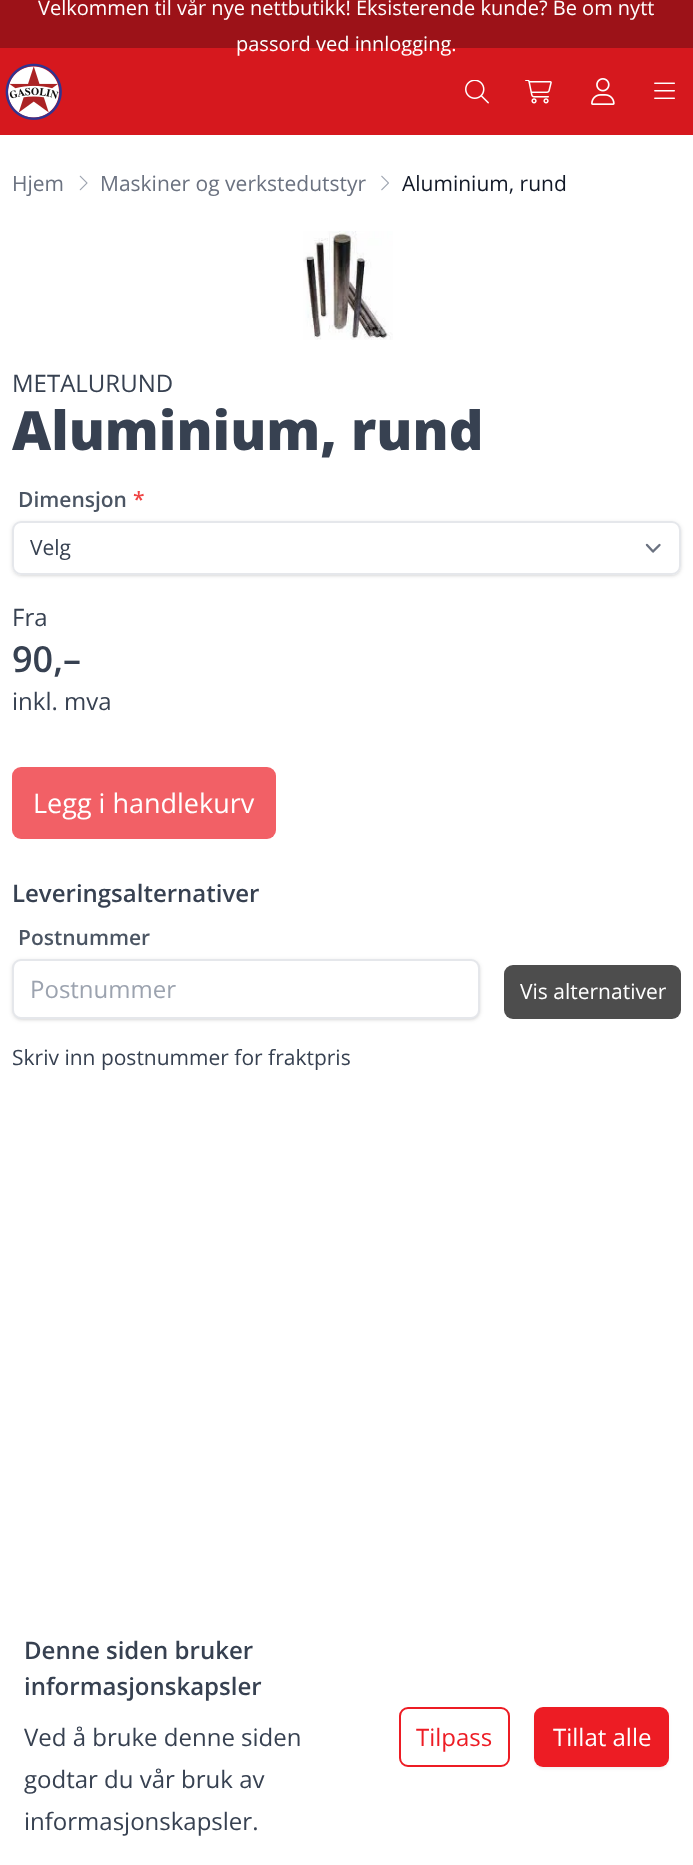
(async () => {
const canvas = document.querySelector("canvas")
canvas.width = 693
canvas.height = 1865
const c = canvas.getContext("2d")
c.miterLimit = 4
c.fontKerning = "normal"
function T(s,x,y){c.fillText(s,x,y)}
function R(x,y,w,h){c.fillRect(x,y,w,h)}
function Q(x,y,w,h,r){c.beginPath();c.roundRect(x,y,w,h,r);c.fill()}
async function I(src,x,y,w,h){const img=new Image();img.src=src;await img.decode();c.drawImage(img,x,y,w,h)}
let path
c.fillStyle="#fff"
R(0,0,693,1865)
c.fillStyle="#d6181e"
R(0,48,693,87)
c.fillStyle="#9c1218"
R(0,0,693,48)
c.font="20px Open Sans"
c.fillStyle="#fff"
T("Velkommen til vår nye nettbutikk! Eksisterende kunde? Be om nytt",38,15)
T("passord ved innlogging.",236,51)
await I("1.png",5,63,57,57)
await I("2.png",465,80,24,24)
await I("3.png",525,80,27,24)
await I("4.png",591,78,24,27)
await I("5.png",654,82,21,17)
c.font="21px Open Sans"
c.fillStyle="#6b7280"
T("Hjem",12,191)
await I("6.png",79,175,9,16)
T("Maskiner og verkstedutstyr",100,191)
await I("7.png",381,175,8,16)
c.fillStyle="#111827"
T("Aluminium, rund",402,191)
await I("8.png",303,231,90,109)
c.font="24px Open Sans"
c.fillStyle="#374151"
T("METALURUND",12,392)
c.font="800 54px Open Sans"
T("Aluminium, rund",12,450)
c.font="600 21px Open Sans"
c.fillStyle="#4b5563"
T("Dimensjon",18,507)
c.fillStyle="#ef4444"
T("*",133,507)
c.fillStyle="#0000001a"
c.filter="blur(1.5px)"
c.beginPath()
c.roundRect(14,524,666,51,8)
c.fill()
c.filter="none"
c.filter="blur(2px)"
c.beginPath()
c.roundRect(12,522,669,54,9)
c.fill()
c.filter="none"
c.fillStyle="#fff"
Q(12,521,669,54,9)
path = new Path2D("M647 545l6 6.5l6.5-6.5")
c.strokeStyle="#6b7280"
c.lineWidth=2.4
c.lineCap="round"
c.lineJoin="round"
c.stroke(path)
c.beginPath()
c.roundRect(13,522,667,52,8)
c.strokeStyle="#e5e7eb"
c.lineWidth=2
c.lineJoin="miter"
c.stroke()
c.font="21px Open Sans"
c.fillStyle="#374151"
T("Velg",30,555)
c.font="24px Open Sans"
T("Fra",12,626)
c.font="600 36px Open Sans"
T("90,–",12,672)
c.font="24px Open Sans"
T("inkl. mva",12,710)
c.fillStyle="#f26066"
Q(12,767,264,72,9)
c.font="27px Open Sans"
c.fillStyle="#fff"
T("Legg i handlekurv",33,813)
c.font="600 24px Open Sans"
c.fillStyle="#374151"
T("Leveringsalternativer",12,902)
c.font="600 21px Open Sans"
c.fillStyle="#4b5563"
T("Postnummer",18,945)
c.fillStyle="#0000001a"
c.filter="blur(1.5px)"
c.beginPath()
c.roundRect(14,962,465,57,8)
c.fill()
c.filter="none"
c.filter="blur(2px)"
c.beginPath()
c.roundRect(12,960,468,60,9)
c.fill()
c.filter="none"
c.fillStyle="#fff"
c.beginPath()
c.roundRect(13,960,466,58,8)
c.fill()
c.stroke()
c.font="24px Open Sans"
c.fillStyle="#9ca3af"
T("Postnummer",30,998)
c.fillStyle="#4d4d4d"
Q(504,965,177,54,9)
c.font="21px Open Sans"
c.fillStyle="#fff"
T("Vis alternativer",520,999)
c.fillStyle="#374151"
T("Skriv inn postnummer for fraktpris",12,1065)
c.font="600 24px Open Sans"
T("Denne siden bruker",24,1659)
T("informasjonskapsler",24,1695)
c.font="24px Open Sans"
T("Ved å bruke denne siden",24,1746)
T("godtar du vår bruk av",24,1788)
T("informasjonskapsler.",24,1830)
c.beginPath()
c.roundRect(400,1708,109,58,8)
c.strokeStyle="#ed1c24"
c.stroke()
c.fillStyle="#ed1c24"
T("Tilpass",416,1746)
c.fillStyle="#0000000d"
c.filter="blur(1.5px)"
c.beginPath()
c.roundRect(534,1709,135,60,9)
c.fill()
c.filter="none"
c.fillStyle="#ed1c24"
Q(534,1707,135,60,9)
c.fillStyle="#fff"
T("Tillat alle",553,1746)
})()
